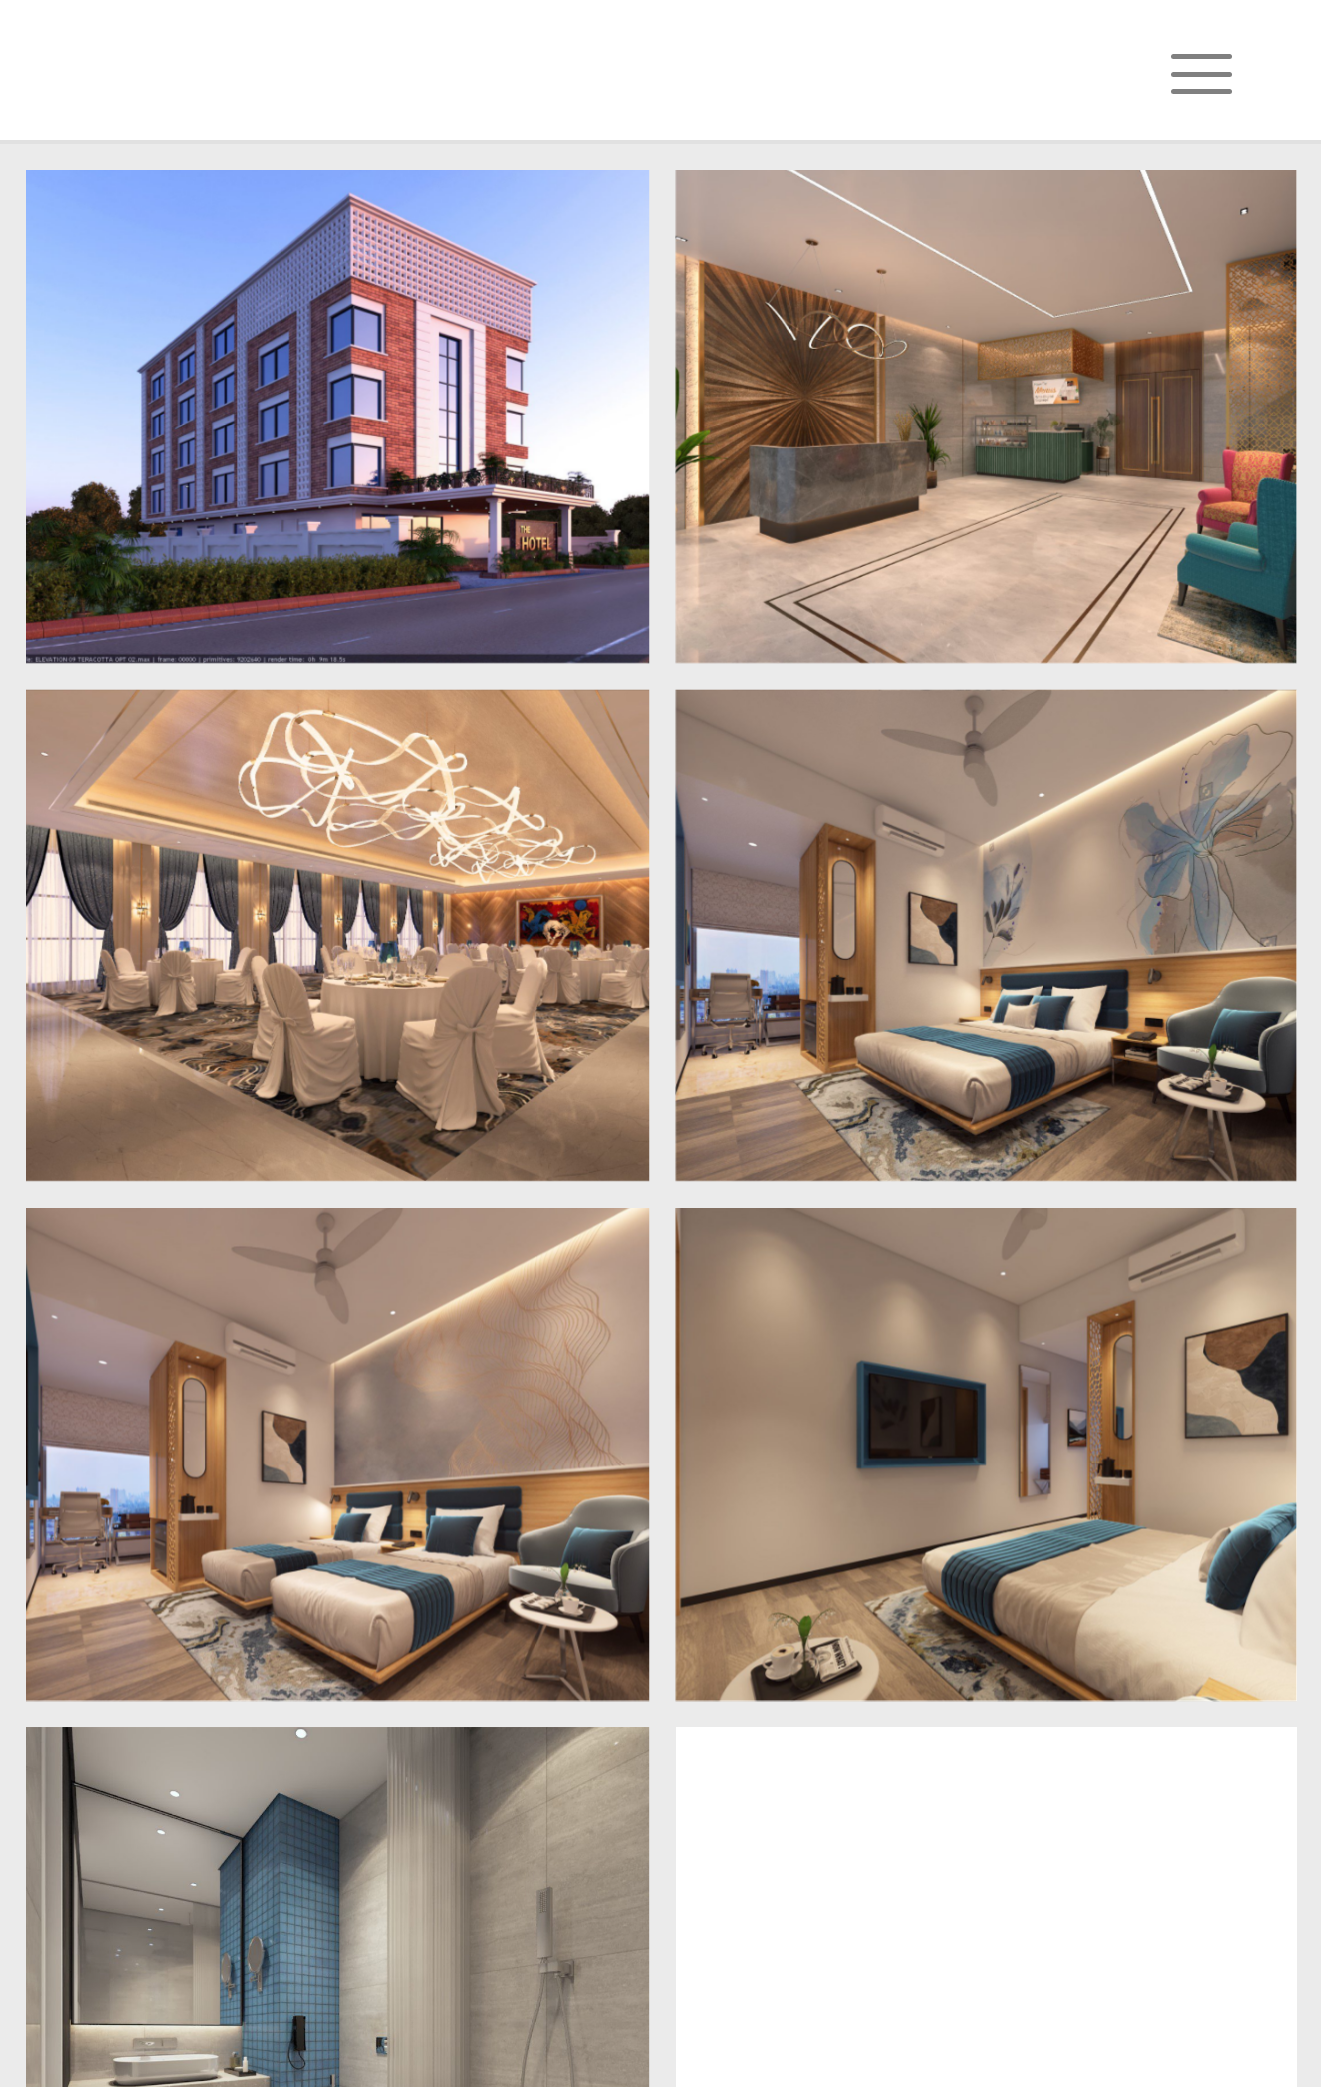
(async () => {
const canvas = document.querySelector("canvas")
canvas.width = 1321
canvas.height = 2087
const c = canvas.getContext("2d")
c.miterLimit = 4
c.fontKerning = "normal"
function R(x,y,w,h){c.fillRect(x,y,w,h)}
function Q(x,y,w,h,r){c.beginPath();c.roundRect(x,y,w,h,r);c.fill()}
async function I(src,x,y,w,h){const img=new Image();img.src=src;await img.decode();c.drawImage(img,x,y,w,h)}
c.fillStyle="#fff"
R(0,0,1321,2087)
c.fillStyle="#808080"
Q(1171,72,61,5,2.5)
Q(1171,54,61,5,2.5)
Q(1171,89,61,5,2.5)
c.fillStyle="#e1e1e1"
R(0,140,1321,4)
c.fillStyle="#ebebeb"
R(0,144,1321,1943)
await I("1.png",26,170,624,494)
c.fillStyle="#fff"
R(676,170,621,493)
await I("2.png",675,170,622,494)
await I("3.png",26,689,624,493)
R(676,690,621,491)
await I("4.png",675,689,622,493)
R(26,1700,623,1)
await I("5.png",26,1208,624,494)
R(676,1208,621,493)
await I("6.png",675,1208,622,494)
await I("7.png",26,1727,624,360)
R(676,1727,621,360)
})()
